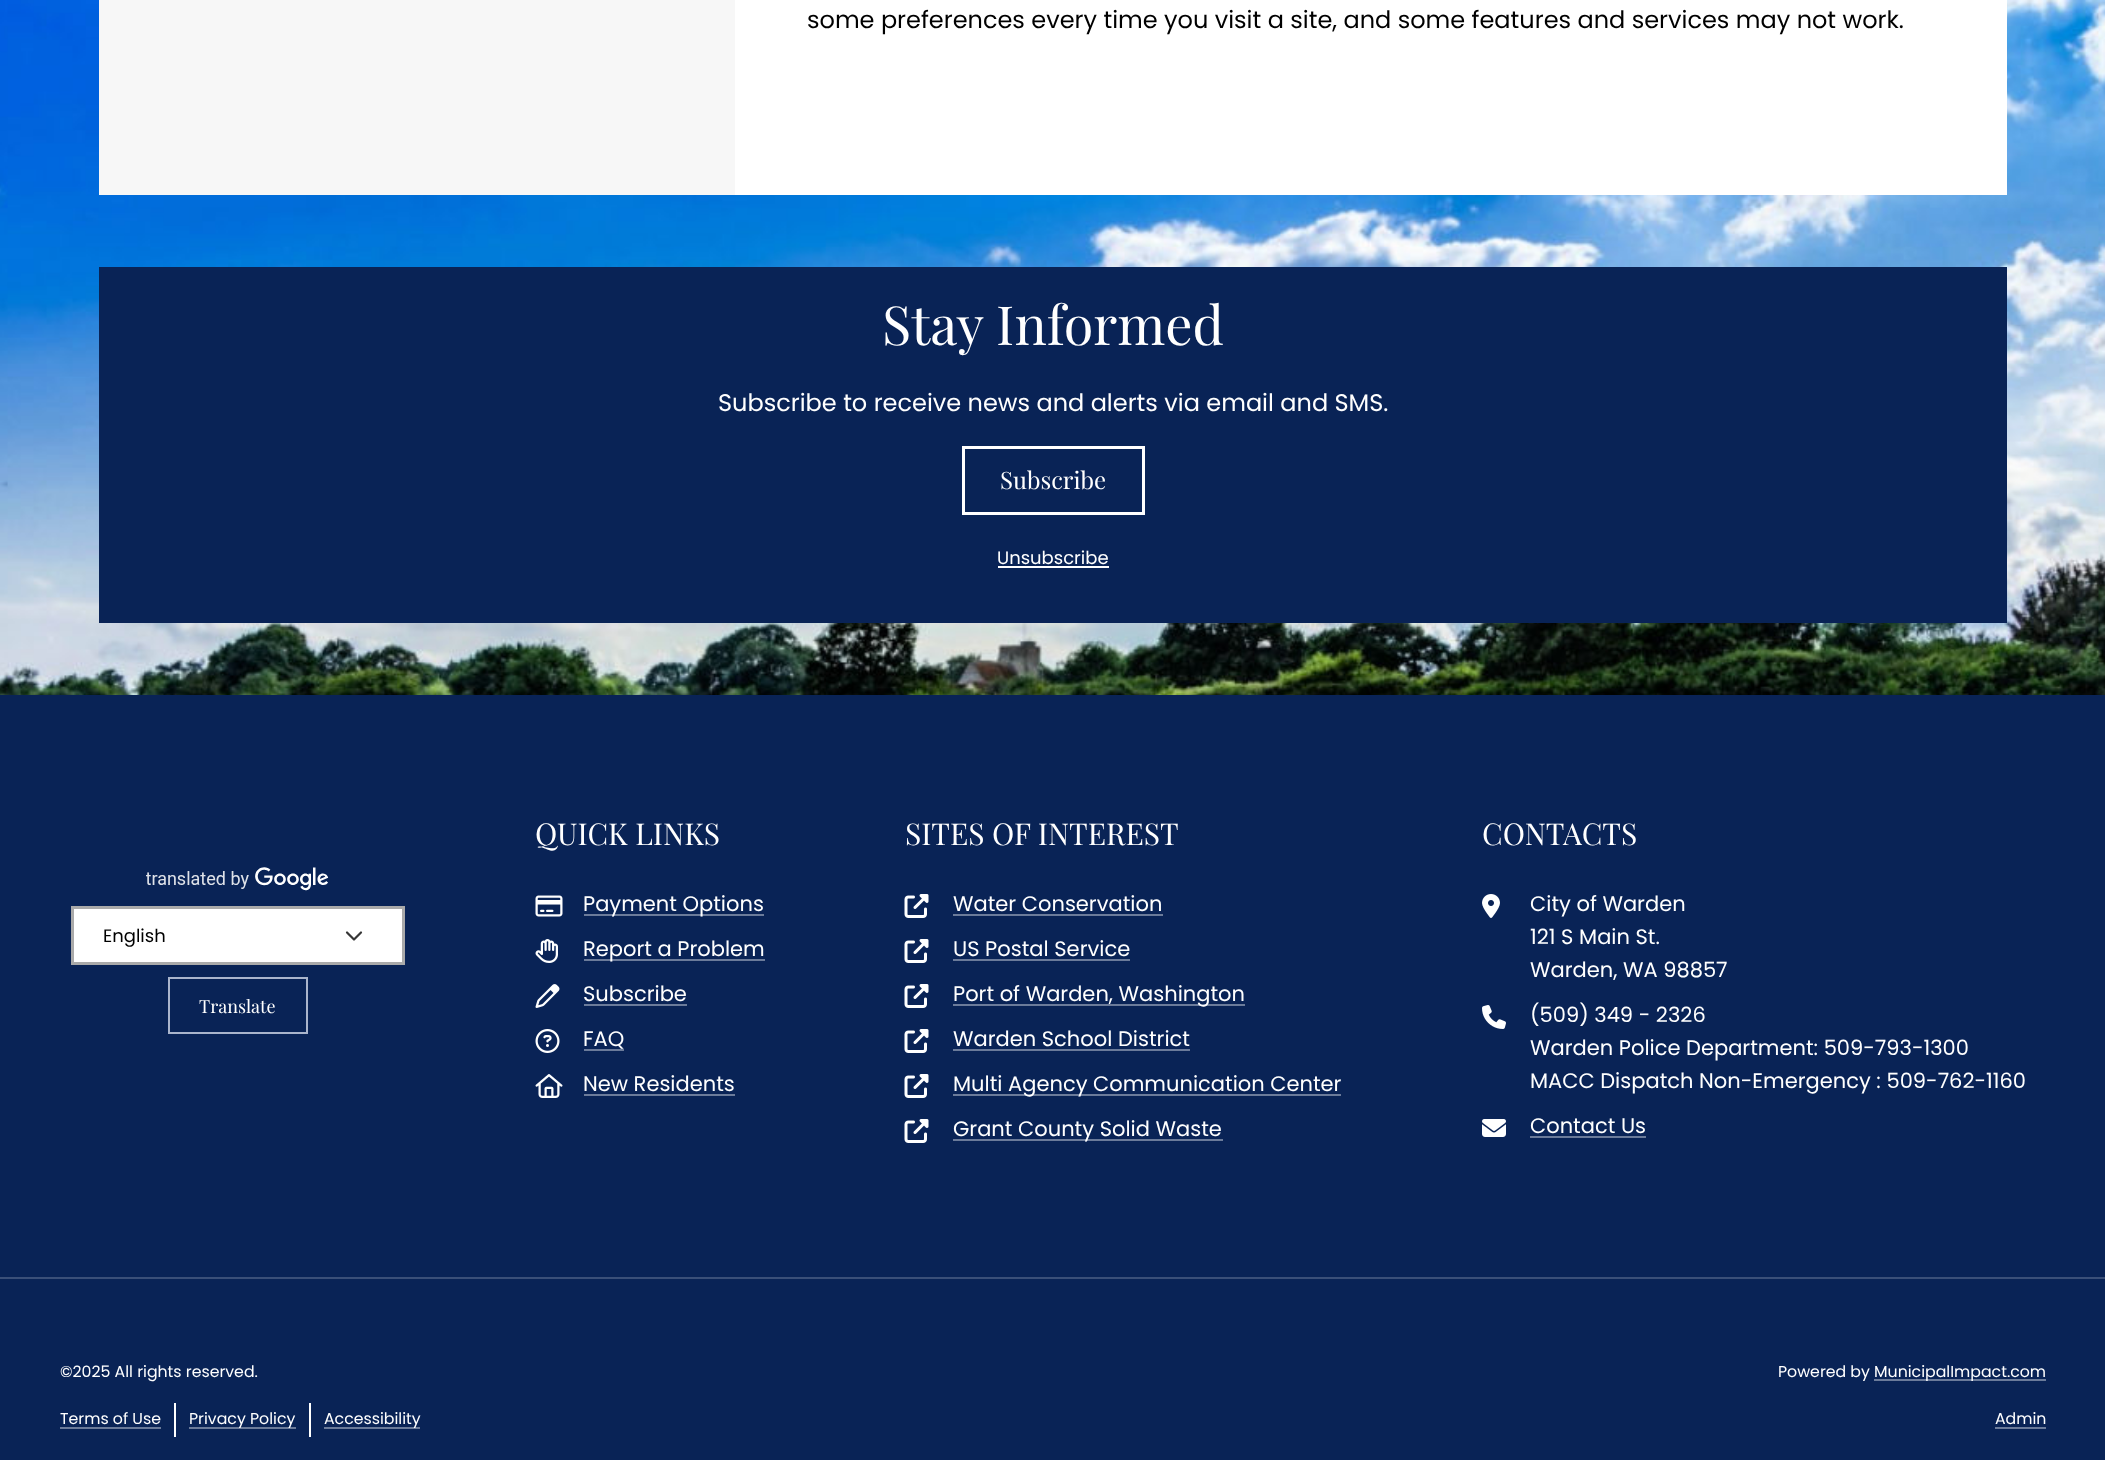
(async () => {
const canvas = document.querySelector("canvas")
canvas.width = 2105
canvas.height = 1460
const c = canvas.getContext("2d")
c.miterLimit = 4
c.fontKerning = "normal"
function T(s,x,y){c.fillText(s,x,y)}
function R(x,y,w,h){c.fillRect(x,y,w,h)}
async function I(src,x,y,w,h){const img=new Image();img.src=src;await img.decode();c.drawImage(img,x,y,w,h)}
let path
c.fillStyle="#fff"
R(0,0,2105,1460)
await I("1.png",0,0,2105,695)
c.fillStyle="#f7f7f7"
R(99,0,636,195)
c.fillStyle="#fff"
R(735,0,1272,195)
c.font="24px Poppins"
c.fillStyle="#000"
T("some preferences every time you visit a site, and some features and services may not work.",807,28)
c.fillStyle="#092356"
R(99,267,1908,356)
c.font="54px Playfair Display"
c.fillStyle="#fff"
T("Stay Informed",882,345)
c.font="24px Poppins"
T("Subscribe to receive news and alerts via email and SMS.",718,411)
c.strokeStyle="#fff"
c.lineWidth=3
c.strokeRect(963.5,447.5,180,66)
c.font="24px Playfair Display"
T("Subscribe",1000,489)
c.font="18px Poppins"
T("Unsubscribe",997,564)
R(998,566,111,2)
c.fillStyle="#092356"
R(0,695,2105,765)
await I("2.png",146,867,183,24)
c.fillStyle="#fff"
R(74,909,328,53)
path = new Path2D("M347 932.5l7 7l7-7")
c.strokeStyle="#363636"
c.lineWidth=2.2
c.lineCap="round"
c.lineJoin="round"
c.stroke(path)
c.strokeStyle="#aaa"
c.lineWidth=3
c.lineJoin="miter"
c.strokeRect(72.5,907.5,331,56)
c.fillStyle="#000"
T("English",103,942)
c.strokeStyle="#aab5cc"
c.lineWidth=2
c.strokeRect(169,978,138,55)
c.font="18px Playfair Display"
c.fillStyle="#fff"
T("Translate",199,1013)
c.font="30px Playfair Display"
T("QUICK LINKS",535,845)
await I("3.png",535,895,28,22)
c.fillStyle="#6b7b9a"
R(584,914,180,2)
c.font="21px Poppins"
c.fillStyle="#fff"
T("Payment Options",583,911)
await I("4.png",535,939,23,24)
c.fillStyle="#6b7b9a"
R(584,959,181,2)
c.fillStyle="#fff"
T("Report a Problem",583,956)
await I("5.png",535,984,25,24)
T("Subscribe",583,1001)
c.fillStyle="#6b7b9a"
R(584,1004,103,2)
await I("6.png",535,1029,25,24)
c.fillStyle="#fff"
T("FAQ",583,1046)
c.fillStyle="#6b7b9a"
R(584,1049,40,2)
await I("7.png",535,1074,28,24)
c.fillStyle="#fff"
T("New Residents",583,1091)
c.fillStyle="#6b7b9a"
R(584,1094,151,2)
c.font="30px Playfair Display"
c.fillStyle="#fff"
T("SITES OF INTEREST",905,845)
await I("8.png",904,894,25,24)
c.font="21px Poppins"
T("Water Conservation",953,911)
c.fillStyle="#6b7b9a"
R(953,914,210,2)
await I("8.png",904,939,25,24)
c.fillStyle="#fff"
T("US Postal Service",953,956)
c.fillStyle="#6b7b9a"
R(953,959,177,2)
await I("8.png",904,984,25,24)
R(953,1004,292,2)
c.fillStyle="#fff"
T("Port of Warden, Washington",953,1001)
await I("8.png",904,1029,25,24)
T("Warden School District",953,1046)
c.fillStyle="#6b7b9a"
R(953,1049,237,2)
await I("8.png",904,1074,25,24)
R(953,1094,388,2)
c.fillStyle="#fff"
T("Multi Agency Communication Center",953,1091)
await I("8.png",904,1119,25,24)
c.fillStyle="#6b7b9a"
R(953,1139,270,2)
c.fillStyle="#fff"
T("Grant County Solid Waste",953,1136)
c.font="30px Playfair Display"
T("CONTACTS",1482,845)
await I("9.png",1482,894,18,24)
c.font="21px Poppins"
T("City of Warden",1530,911)
T("121 S Main St.",1530,944)
T("Warden, WA 98857",1530,977)
await I("10.png",1482,1005,24,24)
T("(509) 349 - 2326",1530,1022)
T("Warden Police Department: 509-793-1300",1530,1055)
T("MACC Dispatch Non-Emergency : 509-762-1160",1530,1088)
await I("11.png",1482,1119,24,18)
T("Contact Us",1530,1133)
c.fillStyle="#6b7b9a"
R(1530,1136,116,2)
c.fillStyle="#3a4f78"
R(0,1277,2105,2)
c.font="15.75px Poppins"
c.fillStyle="#fff"
T("©2025 All rights reserved.",60,1377)
T("Terms of Use",60,1424)
c.fillStyle="#6b7b9a"
R(60,1427,101,2)
c.fillStyle="#fff"
R(174,1403,2,34)
c.fillStyle="#6b7b9a"
R(189,1427,107,2)
c.fillStyle="#fff"
T("Privacy Policy",189,1424)
R(309,1403,2,34)
c.fillStyle="#6b7b9a"
R(324,1427,96,2)
c.fillStyle="#fff"
T("Accessibility",324,1424)
T("Powered by",1778,1377)
c.fillStyle="#6b7b9a"
R(1874,1379,172,2)
c.fillStyle="#fff"
T("MunicipalImpact.com",1874,1377)
T("Admin",1995,1424)
c.fillStyle="#6b7b9a"
R(1995,1427,51,2)
})()
